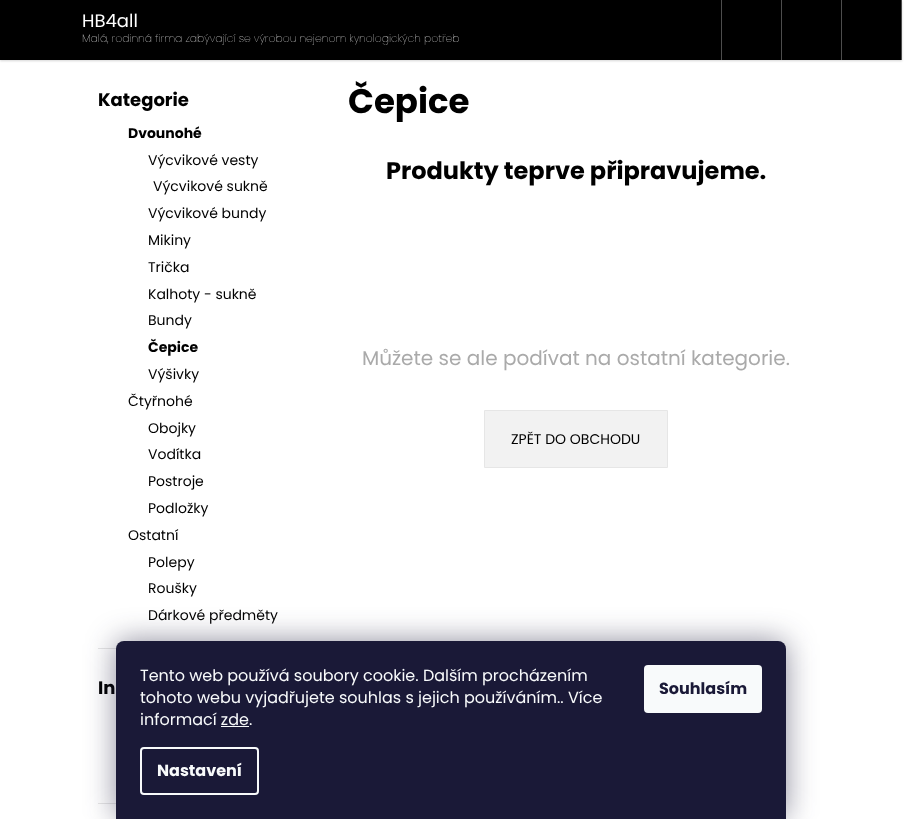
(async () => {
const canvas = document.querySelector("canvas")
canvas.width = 917
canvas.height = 819
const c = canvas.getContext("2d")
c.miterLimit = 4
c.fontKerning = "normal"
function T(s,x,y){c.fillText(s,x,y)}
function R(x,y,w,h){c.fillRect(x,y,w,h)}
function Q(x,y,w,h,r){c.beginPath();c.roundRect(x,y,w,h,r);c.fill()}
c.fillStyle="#fff"
R(0,0,917,819)
c.fillStyle="#00000029"
c.filter="blur(1px)"
c.beginPath()
c.rect(0,1,902,60)
c.fill()
c.filter="none"
c.fillStyle="#000"
R(0,0,901,60)
c.font="18px Poppins"
c.fillStyle="#fff"
T("HB4all",82,27)
c.font="100 10.8px Poppins"
T("Malá, rodinná firma zabývající se výrobou nejenom kynologických potřeb",82,42)
c.fillStyle="#4d4d4d"
R(901,0,1,60)
R(721,0,1,60)
R(781,0,1,60)
R(841,0,1,60)
c.font="bold 18px Poppins"
c.fillStyle="#000"
T("Kategorie",98,106)
c.font="bold 14px Poppins"
T("Dvounohé",128,138)
c.font="14px Poppins"
T("Výcvikové vesty",148,165)
T("Výcvikové sukně",153,191)
T("Výcvikové bundy",148,218)
T("Mikiny",148,245)
T("Trička",148,272)
T("Kalhoty - sukně",148,299)
T("Bundy",148,325)
c.font="bold 14px Poppins"
T("Čepice",148,352)
c.font="14px Poppins"
T("Výšivky",148,379)
T("Čtyřnohé",128,406)
T("Obojky",148,433)
T("Vodítka",148,459)
T("Postroje",148,486)
T("Podložky",148,513)
T("Ostatní",128,540)
T("Polepy",148,567)
T("Roušky",148,593)
T("Dárkové předměty",148,620)
c.fillStyle="#e6e6e6"
R(98,648,19,1)
c.font="bold 18px Poppins"
c.fillStyle="#000"
T("In",98,694)
c.fillStyle="#e6e6e6"
R(98,803,18,1)
c.font="bold 34px Poppins"
c.fillStyle="#000"
T("Čepice",348,113)
c.font="bold 24px Poppins"
T("Produkty teprve připravujeme.",386,179)
c.font="20px Poppins"
c.fillStyle="#aaa"
T("Můžete se ale podívat na ostatní kategorie.",362,365)
c.fillStyle="#f2f2f2"
c.beginPath()
c.rect(484.5,410.5,183,57)
c.fill()
c.strokeStyle="#e6e6e6"
c.stroke()
c.font="14px Poppins"
c.fillStyle="#000"
T("ZPĚT DO OBCHODU",511,444)
c.fillStyle="#1b193980"
c.filter="blur(15px)"
c.beginPath()
c.roundRect(116,641,670,178,8)
c.fill()
c.filter="none"
c.fillStyle="#1a1937"
c.beginPath()
c.roundRect(116,641,670,178,[8,8,0,0])
c.fill()
c.font="16px Poppins"
c.fillStyle="#f8fafb"
T("Tento web používá soubory cookie. Dalším procházením",140,681)
T("tohoto webu vyjadřujete souhlas s jejich používáním.. Více",140,703)
T("informací zde.",140,725)
R(221,726,28,1)
c.beginPath()
c.roundRect(141,748,117,46,3)
c.strokeStyle="#f8fafb"
c.lineWidth=2
c.stroke()
c.font="bold 16px Poppins"
T("Nastavení",157,776)
Q(644,665,118,48,4)
c.fillStyle="#1a1937"
T("Souhlasím",659,694)
})()
